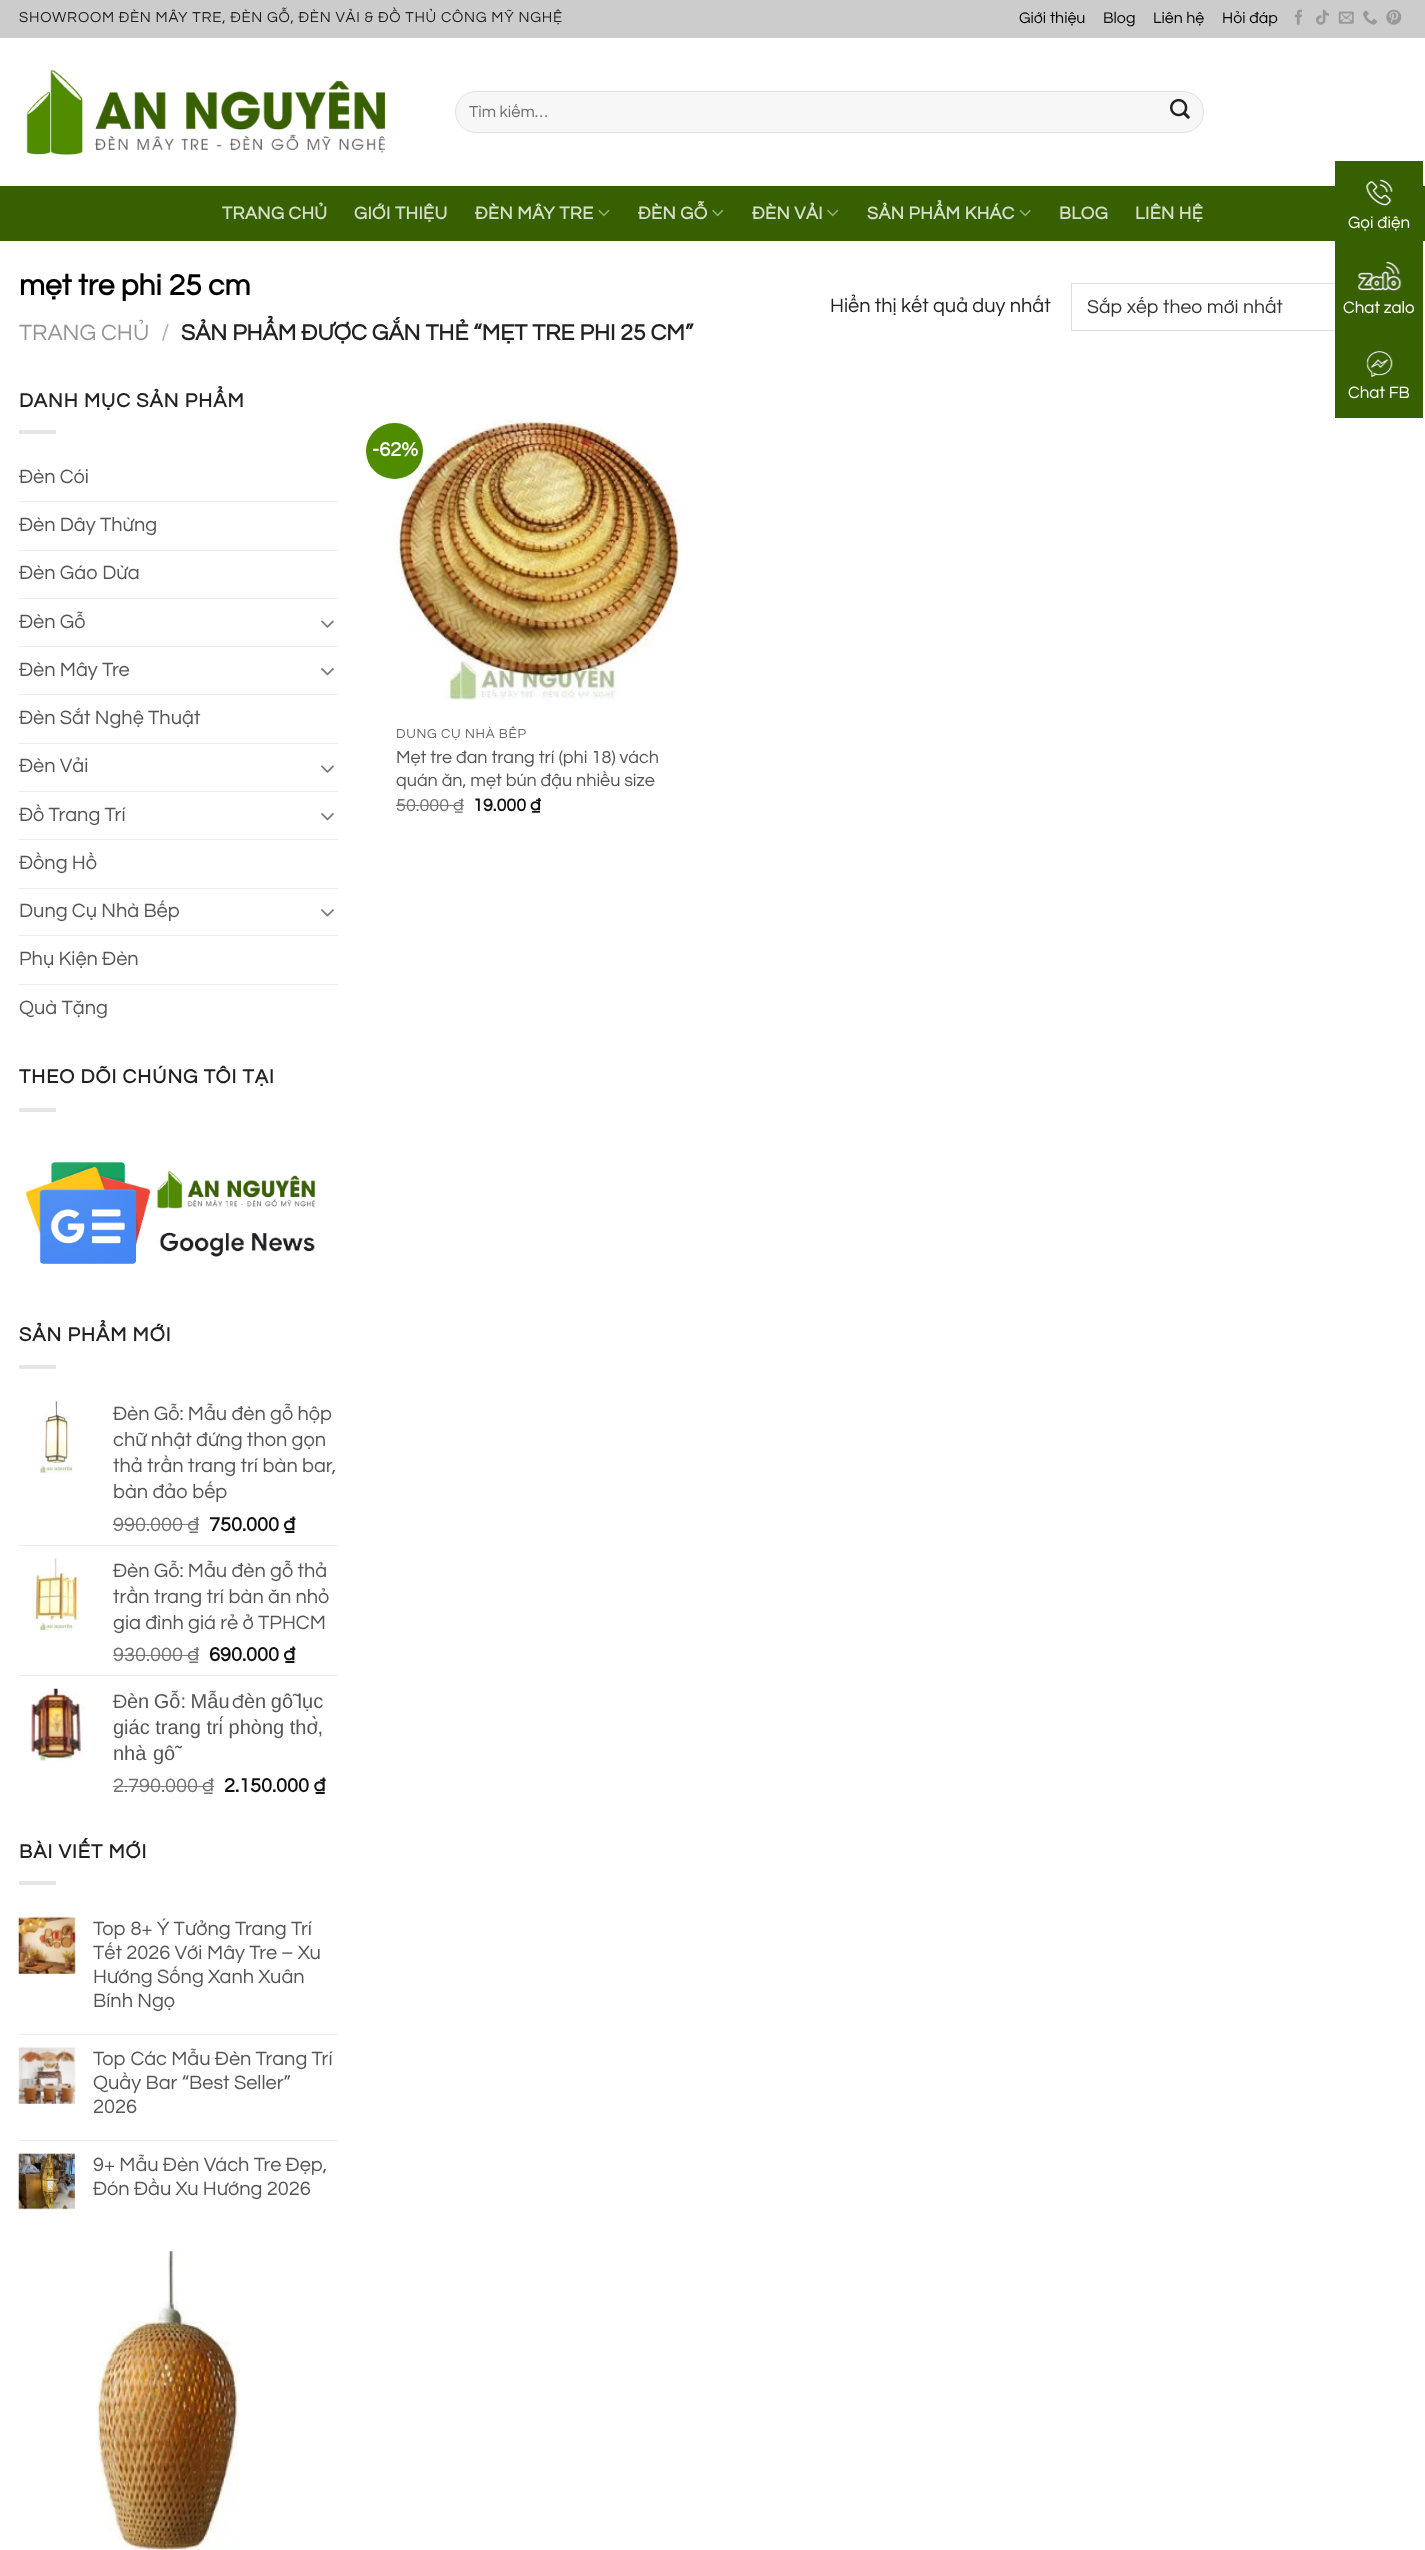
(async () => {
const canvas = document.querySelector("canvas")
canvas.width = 1425
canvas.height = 2550
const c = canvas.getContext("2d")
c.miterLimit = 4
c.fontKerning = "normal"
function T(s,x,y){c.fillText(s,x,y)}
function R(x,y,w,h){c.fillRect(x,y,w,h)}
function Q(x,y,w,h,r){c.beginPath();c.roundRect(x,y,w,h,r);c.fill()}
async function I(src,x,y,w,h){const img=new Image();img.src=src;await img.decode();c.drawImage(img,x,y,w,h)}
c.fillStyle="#fff"
R(0,0,1425,2550)
c.fillStyle="#ccc"
R(0,0,1425,38)
c.letterSpacing="0.75px"
c.font="15px Questrial"
c.fillStyle="#222"
T("SHOWROOM ĐÈN MÂY TRE, ĐÈN GỖ, ĐÈN VẢI & ĐỒ THỦ CÔNG MỸ NGHỆ",19,22)
c.letterSpacing="0px"
c.font="16px Questrial"
c.fillStyle="#000"
T("Giới thiệu",1019,23)
T("Blog",1103,23)
T("Liên hệ",1153,23)
T("Hỏi đáp",1222,23)
await I("1.png",1295,9,7,16)
await I("2.png",1316,9,13,16)
await I("3.png",1338,11,16,13)
await I("4.png",1363,10,14,15)
await I("5.png",1386,9,16,16)
await I("6.png",26,69,360,86)
c.fillStyle="#f7f7f7"
Q(455,91,749,42,21)
c.beginPath()
c.roundRect(455.5,91.5,748,41,20.5)
c.strokeStyle="#00000017"
c.stroke()
c.save()
c.beginPath()
c.rect(469,104,716,17)
c.clip()
c.font="16.5px Questrial"
c.fillStyle="#707070"
T("Tìm kiếm…",469,117)
c.restore()
await I("7.png",1170,98,20,21)
c.fillStyle="#376100"
R(0,186,1425,55)
c.fillStyle="#355b03"
R(19,186,1316,1)
c.letterSpacing="0.4px"
c.font="bold 18px Questrial"
c.fillStyle="#d7dfcc"
T("TRANG CHỦ",222,219)
T("GIỚI THIỆU",354,219)
T("ĐÈN MÂY TRE",475,219)
await I("8.png",598,209,12,8)
T("ĐÈN GỖ",638,219)
await I("9.png",712,209,12,8)
T("ĐÈN VẢI",752,219)
await I("9.png",827,209,12,8)
T("SẢN PHẨM KHÁC",867,219)
await I("10.png",1019,209,12,8)
T("BLOG",1059,219)
T("LIÊN HỆ",1135,219)
c.letterSpacing="0px"
c.font="bold 30px Questrial"
c.fillStyle="#000"
T("mẹt tre phi 25 cm",19,295)
c.font="23px Questrial"
c.fillStyle="#949494"
T("TRANG CHỦ",19,340)
c.fillStyle="#b2b2b2"
T("/",161,340)
c.font="bold 23px Questrial"
c.fillStyle="#222"
T("SẢN PHẨM ĐƯỢC GẮN THẺ “MẸT TRE PHI 25 CM”",181,340)
c.font="20px Questrial"
T("Hiển thị kết quả duy nhất",830,312)
c.strokeStyle="#ddd"
c.strokeRect(1071.5,283.5,334,47)
c.font="19.4px Questrial"
c.fillStyle="#333"
T("Sắp xếp theo mới nhất",1087,313)
c.letterSpacing="1px"
c.font="bold 20px Questrial"
c.fillStyle="#222"
T("DANH MỤC SẢN PHẨM",19,407)
c.fillStyle="#e6e6e6"
R(19,430,37,4)
c.letterSpacing="0px"
c.font="20px Questrial"
c.fillStyle="#555"
T("Đèn Cói",19,483)
c.fillStyle="#ececec"
R(19,501,319,1)
c.fillStyle="#555"
T("Đèn Dây Thừng",19,531)
c.fillStyle="#ececec"
R(19,550,319,1)
c.fillStyle="#555"
T("Đèn Gáo Dừa",19,579)
c.fillStyle="#ececec"
R(19,598,319,1)
c.fillStyle="#555"
T("Đèn Gỗ",19,628)
await I("11.png",321,620,13,8)
c.fillStyle="#ececec"
R(19,646,319,1)
c.fillStyle="#555"
T("Đèn Mây Tre",19,676)
await I("12.png",321,668,13,8)
c.fillStyle="#ececec"
R(19,694,319,1)
c.fillStyle="#555"
T("Đèn Sắt Nghệ Thuật",19,724)
c.fillStyle="#ececec"
R(19,743,319,1)
c.fillStyle="#555"
T("Đèn Vải",19,772)
await I("11.png",321,765,13,8)
c.fillStyle="#ececec"
R(19,791,319,1)
c.fillStyle="#555"
T("Đồ Trang Trí",19,821)
await I("12.png",321,813,13,8)
c.fillStyle="#ececec"
R(19,839,319,1)
c.fillStyle="#555"
T("Đồng Hồ",19,869)
c.fillStyle="#ececec"
R(19,888,319,1)
c.fillStyle="#555"
T("Dung Cụ Nhà Bếp",19,917)
await I("13.png",321,909,13,8)
c.fillStyle="#ececec"
R(19,935,319,1)
c.fillStyle="#555"
T("Phụ Kiện Đèn",19,965)
c.fillStyle="#ececec"
R(19,984,319,1)
c.fillStyle="#555"
T("Quà Tặng",19,1014)
c.letterSpacing="1px"
c.font="bold 20px Questrial"
c.fillStyle="#222"
T("THEO DÕI CHÚNG TÔI TẠI",19,1083)
c.fillStyle="#e6e6e6"
R(19,1108,37,4)
await I("14.png",26,1162,290,102)
c.fillStyle="#222"
T("SẢN PHẨM MỚI",19,1341)
c.fillStyle="#e6e6e6"
R(19,1365,37,4)
await I("15.png",39,1401,35,73)
c.letterSpacing="0px"
c.font="20px Questrial"
c.fillStyle="#555"
T("Đèn Gỗ: Mẫu đèn gỗ hộp",113,1420)
T("chữ nhật đứng thon gọn",113,1446)
T("thả trần trang trí bàn bar,",113,1472)
T("bàn đảo bếp",113,1498)
c.fillStyle="#707070"
T("990.000 ₫",113,1531)
c.fillStyle="#7a7a7a"
R(113,1524,86,1)
c.font="bold 20px Questrial"
c.fillStyle="#111"
T("750.000 ₫",209,1531)
c.fillStyle="#ececec"
R(19,1545,319,1)
await I("16.png",32,1558,47,73)
c.font="20px Questrial"
c.fillStyle="#555"
T("Đèn Gỗ: Mẫu đèn gỗ thả",113,1577)
T("trần trang trí bàn ăn nhỏ",113,1603)
T("gia đình giá rẻ ở TPHCM",113,1629)
c.fillStyle="#707070"
T("930.000 ₫",113,1661)
c.fillStyle="#7a7a7a"
R(113,1655,86,1)
c.font="bold 20px Questrial"
c.fillStyle="#111"
T("690.000 ₫",209,1661)
c.fillStyle="#ececec"
R(19,1675,319,1)
await I("17.png",29,1688,56,73)
c.font="20px Questrial"
c.fillStyle="#555"
T("Đ",113,1708)
c.wordSpacing="-1px"
c.font="20px Liberation Sans"
T("èn Gỗ: Mẫu",127,1708)
c.wordSpacing="0px"
c.font="20px Questrial"
T("đ",232,1708)
c.wordSpacing="-1px"
c.font="20px Liberation Sans"
T("èn gỗ lục",244,1708)
c.wordSpacing="0px"
T("giác trang trí phòng thờ,",113,1734)
c.wordSpacing="1px"
T("nhà gỗ",113,1760)
c.wordSpacing="0px"
c.font="20px Questrial"
c.fillStyle="#707070"
T("2.790.000",113,1792)
c.fillStyle="#7a7a7a"
R(113,1786,90,1)
c.fillStyle="#707070"
T("₫",202,1792)
c.fillStyle="#7a7a7a"
R(203,1786,11,1)
c.font="bold 20px Questrial"
c.fillStyle="#111"
T("2.150.000 ₫",224,1792)
c.letterSpacing="1px"
c.fillStyle="#222"
T("BÀI VIẾT MỚI",19,1858)
c.fillStyle="#e6e6e6"
R(19,1881,37,4)
await I("18.png",18,1916,58,58)
c.letterSpacing="0px"
c.font="20px Questrial"
c.fillStyle="#555"
T("Top 8+ Ý Tưởng Trang Trí",93,1935)
T("Tết 2026 Với Mây Tre – Xu",93,1959)
T("Hướng Sống Xanh Xuân",93,1983)
T("Bính Ngọ",93,2007)
c.fillStyle="#ececec"
R(19,2034,319,1)
await I("19.png",18,2046,58,58)
c.fillStyle="#555"
T("Top Các Mẫu Đèn Trang Trí",93,2065)
T("Quầy Bar “Best Seller”",93,2089)
T("2026",93,2113)
c.fillStyle="#ececec"
R(19,2140,319,1)
await I("20.png",18,2153,57,57)
c.fillStyle="#555"
T("9+ Mẫu Đèn Vách Tre Đẹp,",93,2171)
T("Đón Đầu Xu Hướng 2026",93,2195)
await I("21.png",94,2251,145,299)
await I("22.png",392,419,289,281)
c.fillStyle="#4f8c00"
Q(366,423,57,56,28)
c.font="bold 20px Questrial"
c.fillStyle="#fff"
T("-62%",372,456)
c.save()
c.beginPath()
c.rect(396,726,285,17)
c.clip()
c.letterSpacing="0.7px"
c.font="13.5px Questrial"
c.fillStyle="#646464"
T("DUNG CỤ NHÀ BẾP",396,738)
c.restore()
c.font="18px Questrial"
c.fillStyle="#555"
T("Mẹt tre đan trang trí (phi 18) vách",396,763)
T("quán ăn, mẹt bún đậu nhiều size",396,786)
c.fillStyle="#707070"
T("50.000",396,811)
c.fillStyle="#7a7a7a"
R(396,805,58,1)
c.fillStyle="#707070"
T("₫",453,811)
c.fillStyle="#7a7a7a"
R(454,805,10,1)
c.font="bold 18px Questrial"
c.fillStyle="#111"
T("19.000 ₫",473,811)
c.fillStyle="#376100"
R(1335,161,88,257)
await I("23.png",1366,179,27,27)
c.font="17px Questrial"
c.fillStyle="#fff"
T("Gọi điện",1348,228)
await I("24.png",1358,261,44,30)
T("Chat zalo",1343,313)
await I("25.png",1366,351,27,26)
T("Chat FB",1348,398)
})()
